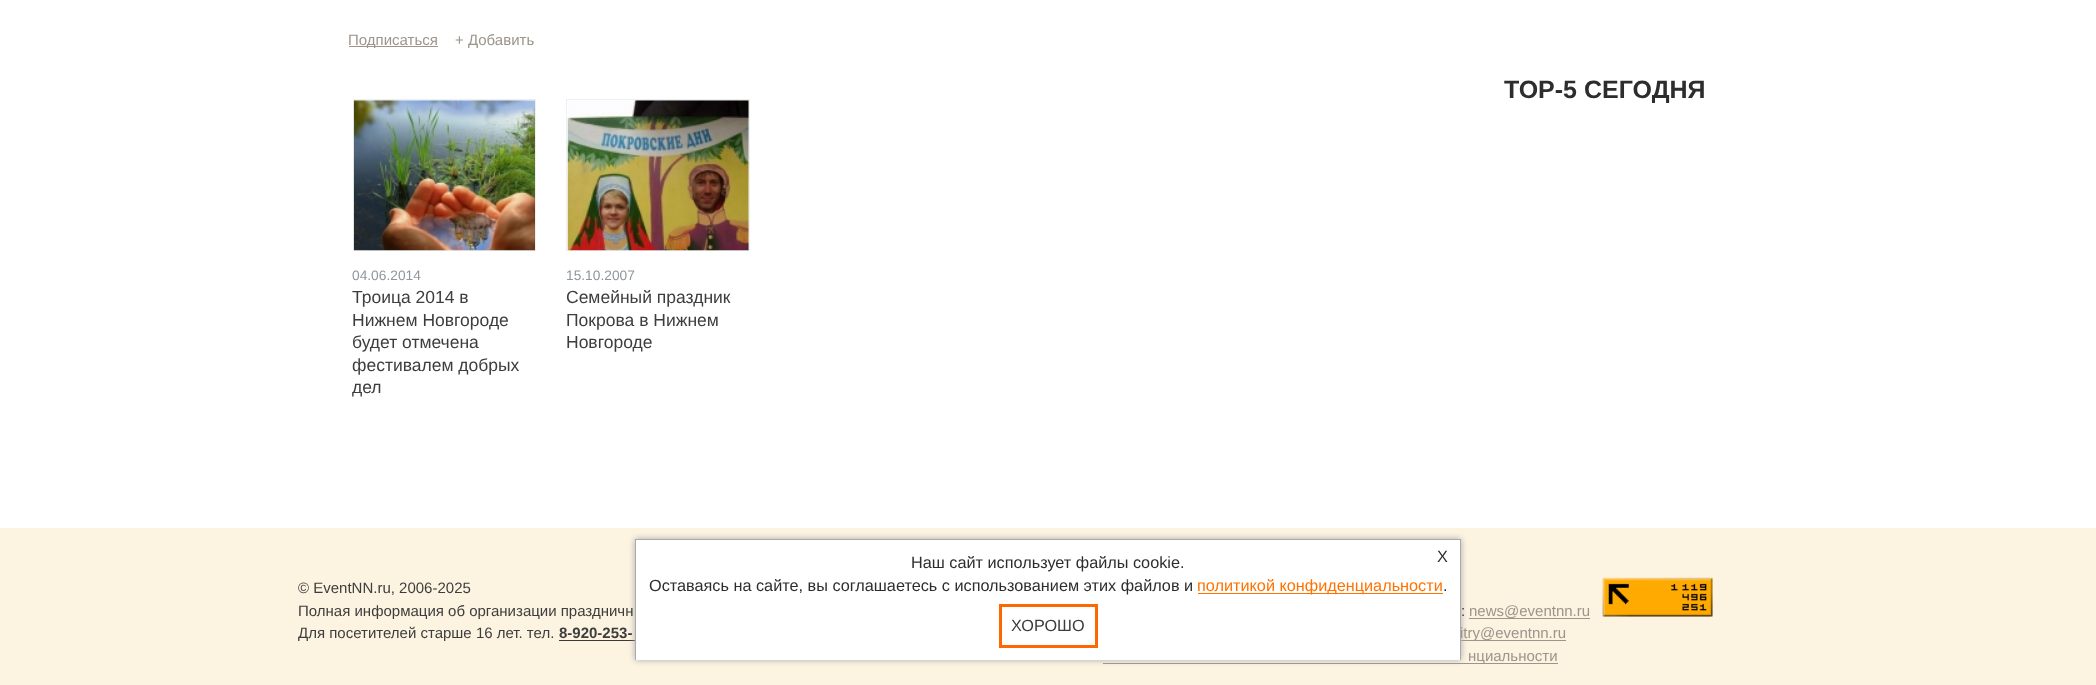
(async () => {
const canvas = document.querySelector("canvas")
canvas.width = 2096
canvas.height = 685
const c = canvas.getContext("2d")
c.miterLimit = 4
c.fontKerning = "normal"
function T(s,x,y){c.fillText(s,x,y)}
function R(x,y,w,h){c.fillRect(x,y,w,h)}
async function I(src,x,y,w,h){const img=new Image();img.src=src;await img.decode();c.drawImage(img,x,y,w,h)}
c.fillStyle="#fff"
R(0,0,2096,685)
c.fillStyle="#9d948b"
R(349,46,89,1)
c.font="15px Liberation Sans"
T("Подписаться",348,45)
T("+ Добавить",455,45)
c.strokeStyle="#edf0f1"
c.strokeRect(353.5,99.5,182,151)
await I("1.png",353,100,182,151)
c.font="13.75px Liberation Sans"
c.fillStyle="#8d979c"
T("04.06.2014",352,280)
c.font="17.5px Liberation Sans"
c.fillStyle="#3d3d3d"
T("Троица 2014 в",352,303)
T("Нижнем Новгороде",352,326)
T("будет отмечена",352,348)
T("фестивалем добрых",352,371)
T("дел",352,393)
c.strokeRect(566.5,99.5,183,151)
await I("2.png",567,100,182,151)
c.font="13.75px Liberation Sans"
c.fillStyle="#8d979c"
T("15.10.2007",566,280)
c.font="17.5px Liberation Sans"
c.fillStyle="#3d3d3d"
T("Семейный праздник",566,303)
T("Покрова в Нижнем",566,326)
T("Новгороде",566,348)
c.font="bold 25px Liberation Sans"
c.fillStyle="#2d2d2d"
T("ТОР-5 СЕГОДНЯ",1504,98)
c.fillStyle="#fcf3e1"
R(0,528,2096,157)
c.fillStyle="#3a3a3a"
R(559,640,76,1)
c.fillStyle="#9d948b"
R(1469,618,121,1)
R(1461,640,105,1)
R(1103,663,455,1)
c.fillStyle="#aaa"
c.filter="blur(3px)"
c.beginPath()
c.rect(635,539,826,121)
c.fill()
c.filter="none"
c.fillStyle="#fff"
R(636,540,824,120)
c.fillStyle="#aaa"
R(635,539,826,1)
c.font="15px Liberation Sans"
c.fillStyle="#9d948b"
T("itry@eventnn.ru",1460,638)
c.fillStyle="#aaa"
R(1460,539,1,121)
R(635,539,1,121)
c.font="16.25px Liberation Sans"
c.fillStyle="#2d2d2d"
T("X",1437,562)
T("Наш сайт использует файлы cookie.",911,568)
T("Оставаясь на сайте, вы соглашаетесь с использованием этих файлов и",649,591)
c.fillStyle="#ff7200"
R(1198,593,245,1)
T("политикой конфиденциальности",1197,591)
c.fillStyle="#2d2d2d"
T(".",1443,591)
c.strokeStyle="#ff6700"
c.lineWidth=3
c.strokeRect(1000.5,605.5,96,41)
c.fillStyle="#3d3d3d"
T("ХОРОШО",1011,631)
c.font="15px Liberation Sans"
T("© EventNN.ru, 2006-2025",298,593)
T("Полная информация об организации праздничн",298,616)
T("Для посетителей старше 16 лет. тел.",298,638)
c.font="bold 15px Liberation Sans"
T("8-920-253-",559,638)
await I("3.png",1602,577,111,40)
c.font="15px Liberation Sans"
T(":",1461,616)
c.fillStyle="#9d948b"
T("news@eventnn.ru",1469,616)
T("нциальности",1468,661)
})()
